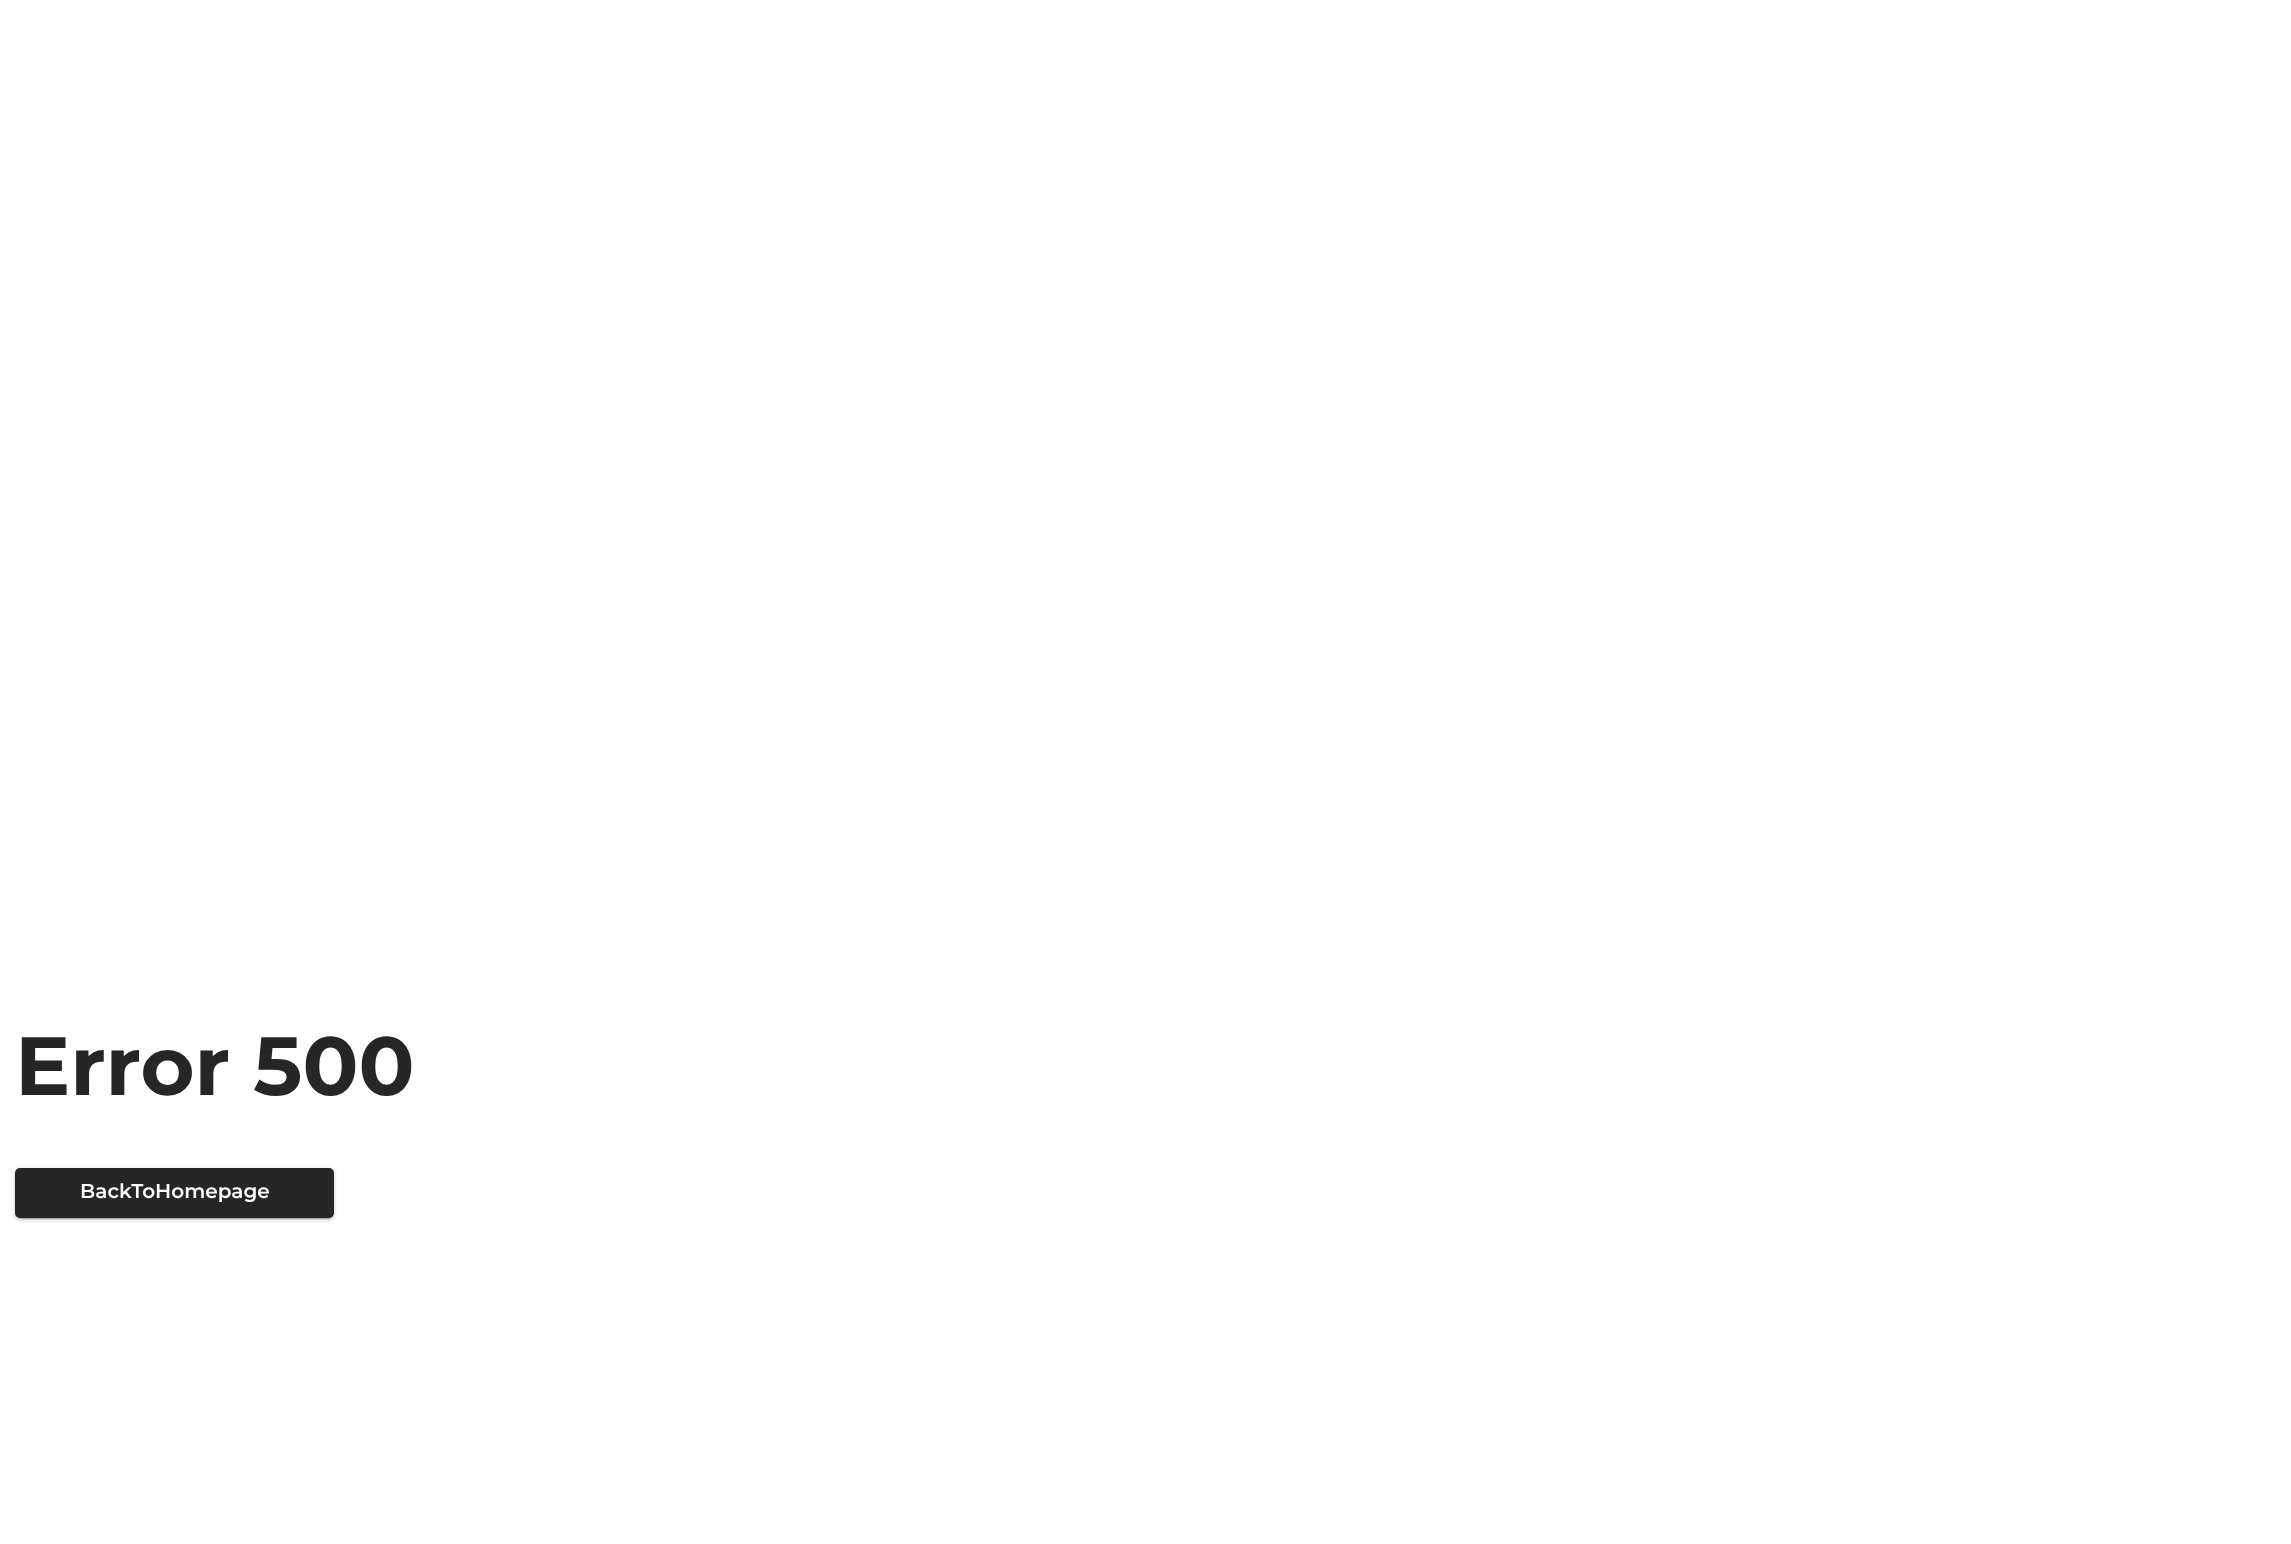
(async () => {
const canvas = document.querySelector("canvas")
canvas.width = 2291
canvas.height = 1544
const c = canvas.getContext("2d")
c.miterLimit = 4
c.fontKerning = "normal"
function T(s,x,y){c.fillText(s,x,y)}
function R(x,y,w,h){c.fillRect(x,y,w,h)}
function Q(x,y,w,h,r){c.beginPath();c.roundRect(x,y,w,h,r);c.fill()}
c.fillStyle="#fff"
R(0,0,2291,1544)
c.font="bold 82.5px Montserrat"
c.fillStyle="#262626"
T("Error 500",15,1095)
c.fillStyle="#0000001f"
c.filter="blur(3px)"
c.beginPath()
c.roundRect(15,1169,319,50,5)
c.fill()
c.filter="none"
c.fillStyle="#00000024"
c.filter="blur(1px)"
c.beginPath()
c.roundRect(15,1170,319,50,5)
c.fill()
c.filter="none"
c.fillStyle="#00000033"
c.filter="blur(0.5px)"
c.beginPath()
c.roundRect(18,1174,313,45,2.5)
c.fill()
c.filter="none"
c.fillStyle="#262626"
Q(15,1168,319,50,5)
c.font="600 20px Montserrat"
c.fillStyle="#fff"
T("BackToHomepage",80,1198)
})()
